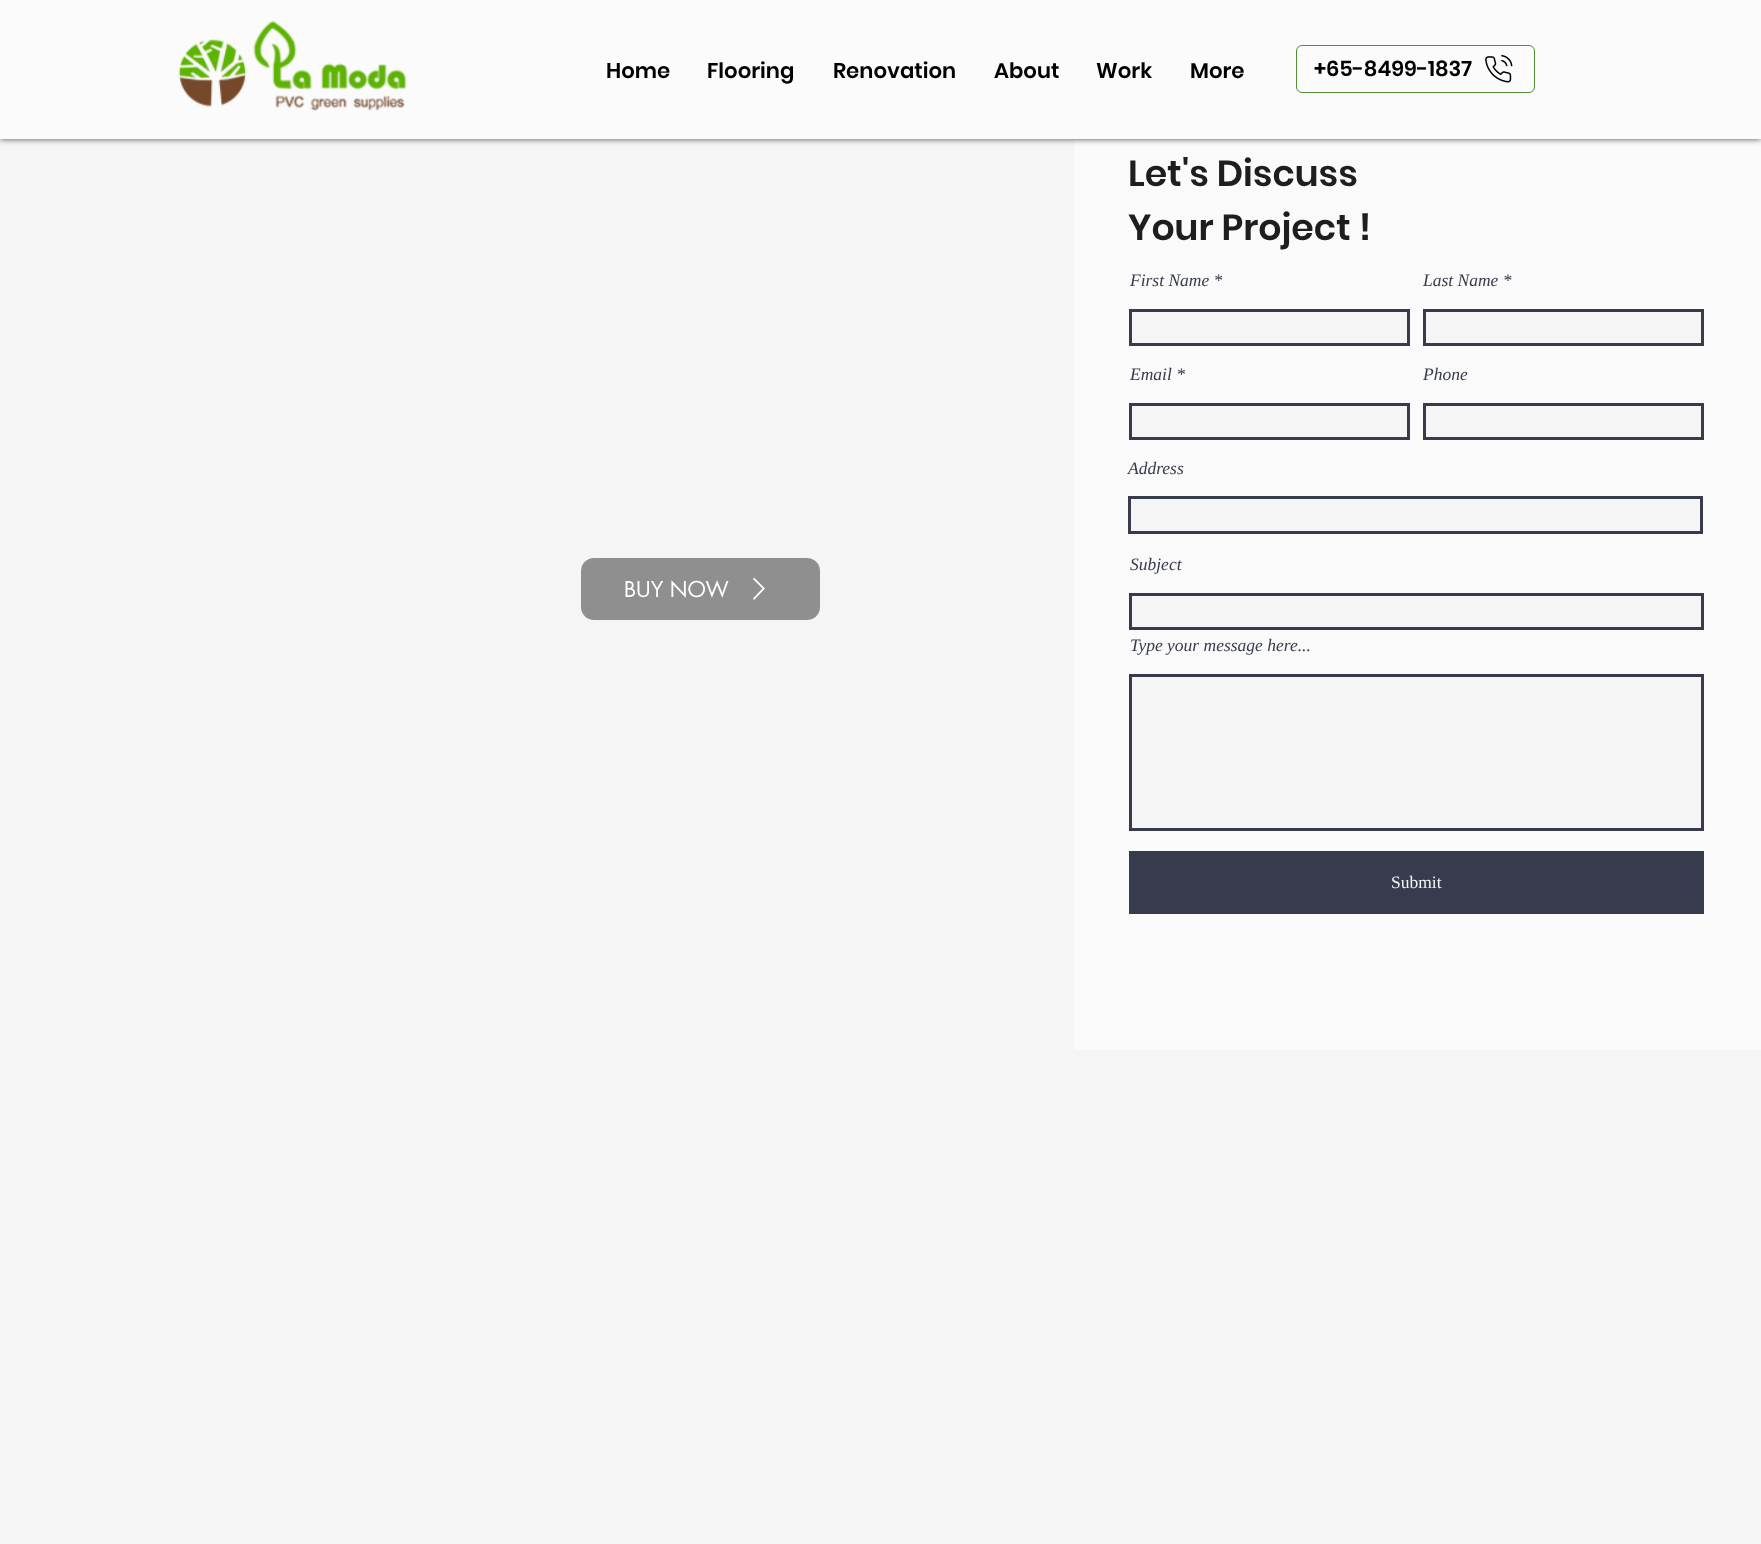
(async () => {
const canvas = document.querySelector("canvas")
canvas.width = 1761
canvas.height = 1544
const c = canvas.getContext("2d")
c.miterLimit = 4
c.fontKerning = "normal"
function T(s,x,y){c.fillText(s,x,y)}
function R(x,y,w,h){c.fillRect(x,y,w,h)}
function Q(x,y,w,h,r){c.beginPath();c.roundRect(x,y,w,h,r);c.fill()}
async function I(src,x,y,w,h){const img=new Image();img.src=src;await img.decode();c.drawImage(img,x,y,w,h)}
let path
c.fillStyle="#f5f5f5"
R(0,0,1761,1544)
c.fillStyle="#fafafa"
R(1074,139,687,911)
c.save()
path = new Path2D("M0 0h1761v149h-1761zm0 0h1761v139h-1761z")
c.clip(path,"evenodd")
c.fillStyle="#000000b3"
c.filter="blur(3px)"
c.beginPath()
c.rect(0,0,1761,139)
c.fill()
c.filter="none"
c.restore()
c.fillStyle="#ffffff99"
R(0,0,1761,139)
await I("1.png",178,39,69,68)
await I("2.png",253,20,154,91)
c.font="600 21.25px Poppins"
c.fillStyle="#000"
T("Home",606,78)
T("Flooring",707,78)
T("Renovation",833,78)
T("About",994,78)
T("Work",1096,78)
T("More",1190,78)
c.beginPath()
c.roundRect(1296.5,45.5,238,47,5.5)
c.strokeStyle="#508f32"
c.stroke()
T("+65-8499-1837",1314,76)
await I("3.png",1485,55,28,28)
c.fillStyle="#8f8f8f"
Q(581,558,239,62,13)
c.font="21.25px futura"
c.fillStyle="#fff"
T("BUY NOW",624,597)
path = new Path2D("M754 600l-1-1.5l9.5-10l-9.5-9.5l1-1.5l11 11z")
c.fill(path,"evenodd")
c.font="600 36.25px Poppins"
c.fillStyle="#1e1e1e"
T("Let's Discuss",1128,186)
T("Your Project !",1128,240)
c.font="italic 17.5px Liberation Serif"
c.fillStyle="#373b4d"
T("First Name *",1130,286)
c.fillStyle="#f5f5f5"
c.beginPath()
c.rect(1130.5,310.5,278,34)
c.fill()
c.strokeStyle="#373b4d"
c.lineWidth=3
c.stroke()
c.fillStyle="#373b4d"
T("Last Name *",1423,286)
c.fillStyle="#f5f5f5"
c.beginPath()
c.rect(1424.5,310.5,278,34)
c.fill()
c.stroke()
c.fillStyle="#373b4d"
T("Email *",1130,380)
c.fillStyle="#f5f5f5"
c.beginPath()
c.rect(1130.5,404.5,278,34)
c.fill()
c.stroke()
c.fillStyle="#373b4d"
T("Phone",1423,380)
c.fillStyle="#f5f5f5"
c.beginPath()
c.rect(1424.5,404.5,278,34)
c.fill()
c.stroke()
c.fillStyle="#373b4d"
T("Address",1128,474)
c.fillStyle="#f5f5f5"
c.beginPath()
c.rect(1129.5,497.5,572,35)
c.fill()
c.stroke()
c.fillStyle="#373b4d"
T("Subject",1130,570)
c.fillStyle="#f5f5f5"
c.beginPath()
c.rect(1130.5,594.5,572,34)
c.fill()
c.stroke()
c.fillStyle="#373b4d"
T("Type your message here...",1130,651)
c.fillStyle="#f5f5f5"
c.beginPath()
c.rect(1130.5,675.5,572,154)
c.fill()
c.stroke()
c.fillStyle="#373b4d"
R(1129,851,575,63)
c.font="17.5px Liberation Serif"
c.fillStyle="#f5f5f5"
T("Submit",1391,888)
})()
